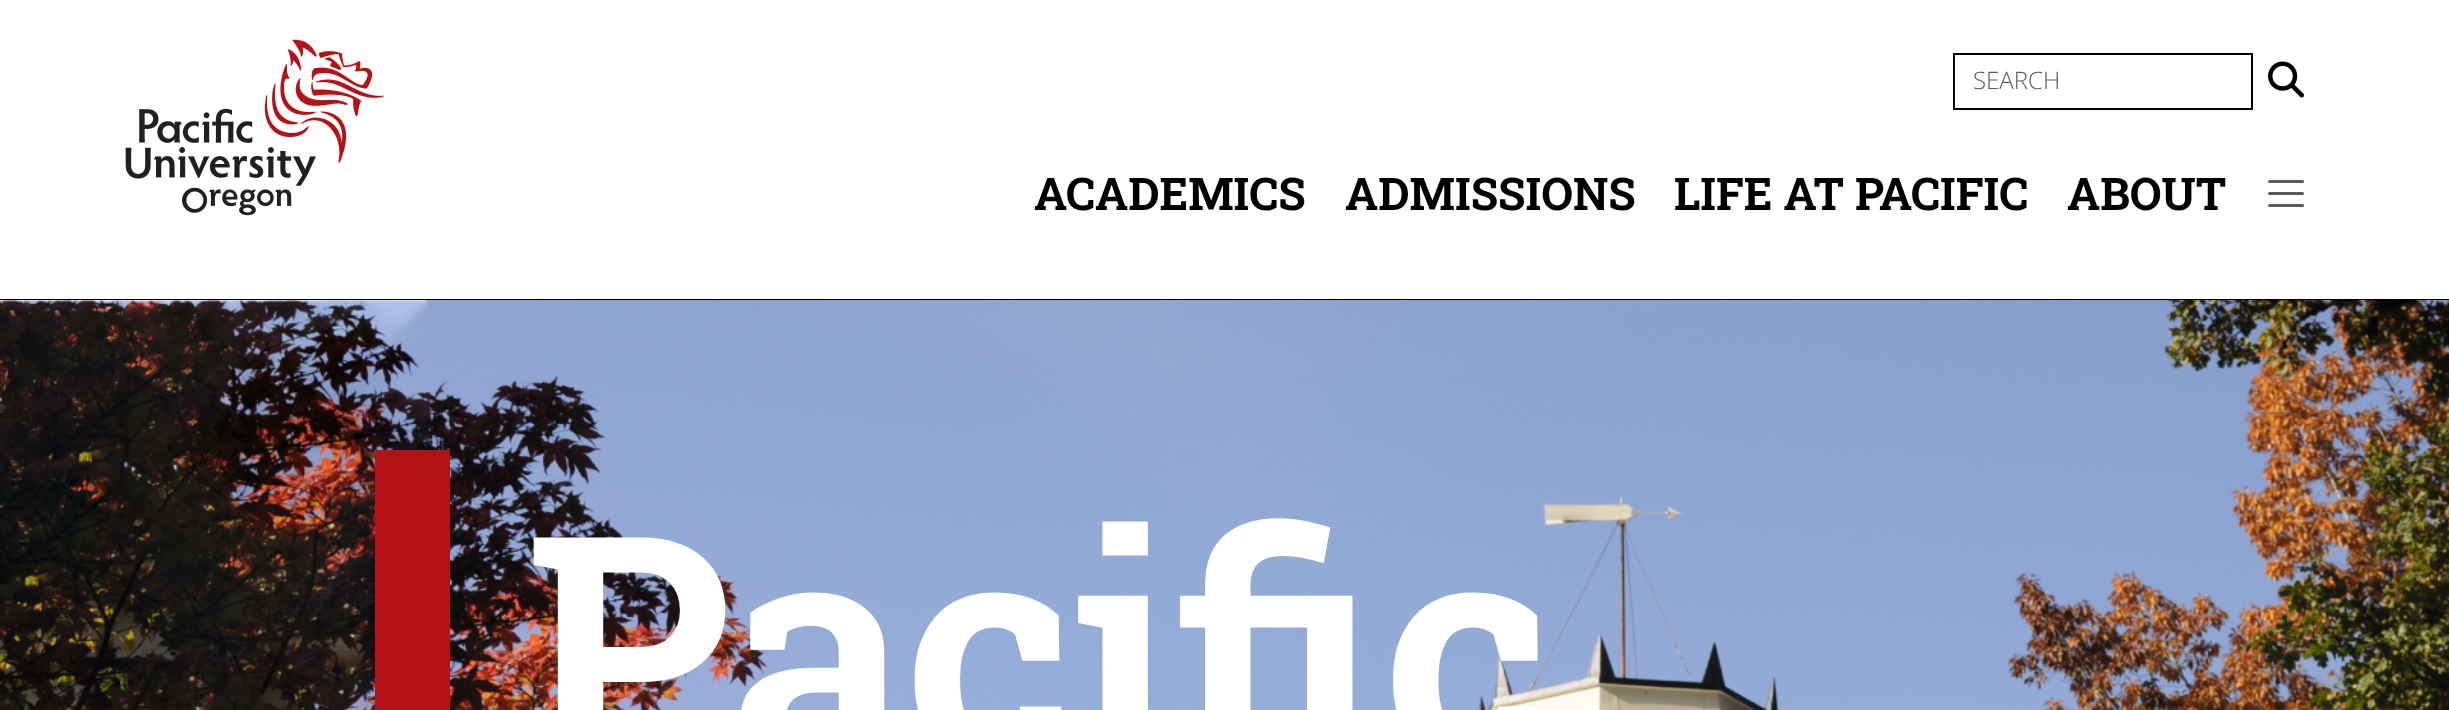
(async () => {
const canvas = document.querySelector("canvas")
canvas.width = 2449
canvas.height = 710
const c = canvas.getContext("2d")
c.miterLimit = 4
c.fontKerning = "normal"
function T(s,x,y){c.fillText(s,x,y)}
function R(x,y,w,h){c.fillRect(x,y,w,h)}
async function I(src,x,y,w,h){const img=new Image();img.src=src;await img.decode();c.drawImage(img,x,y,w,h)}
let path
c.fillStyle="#fff"
R(0,0,2449,710)
c.fillStyle="#000"
R(0,299,2449,1)
await I("1.png",125,39,260,177)
c.strokeStyle="#000"
c.lineWidth=2
c.strokeRect(1954,54,298,55)
c.font="300 24px Open Sans"
c.fillStyle="#595c5f"
T("SEARCH",1973,89)
await I("2.png",2268,61,36,37)
c.font="bold 45px 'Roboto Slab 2'"
c.fillStyle="#000"
T("ACADEMICS",1034,210)
T("ADMISSIONS",1345,210)
T("LIFE AT PACIFIC",1674,210)
T("ABOUT",2067,210)
path = new Path2D("M2269.5 181.5h33m-33 12h33m-33 12h33")
c.strokeStyle="#595c5f"
c.lineWidth=3
c.lineCap="round"
c.stroke(path)
await I("3.png",0,300,2449,410)
c.fillStyle="#b51217"
R(375,450,75,260)
c.font="bold 318.5px Roboto Slab"
c.fillStyle="#fff"
T("Pacific",525,764)
})()
